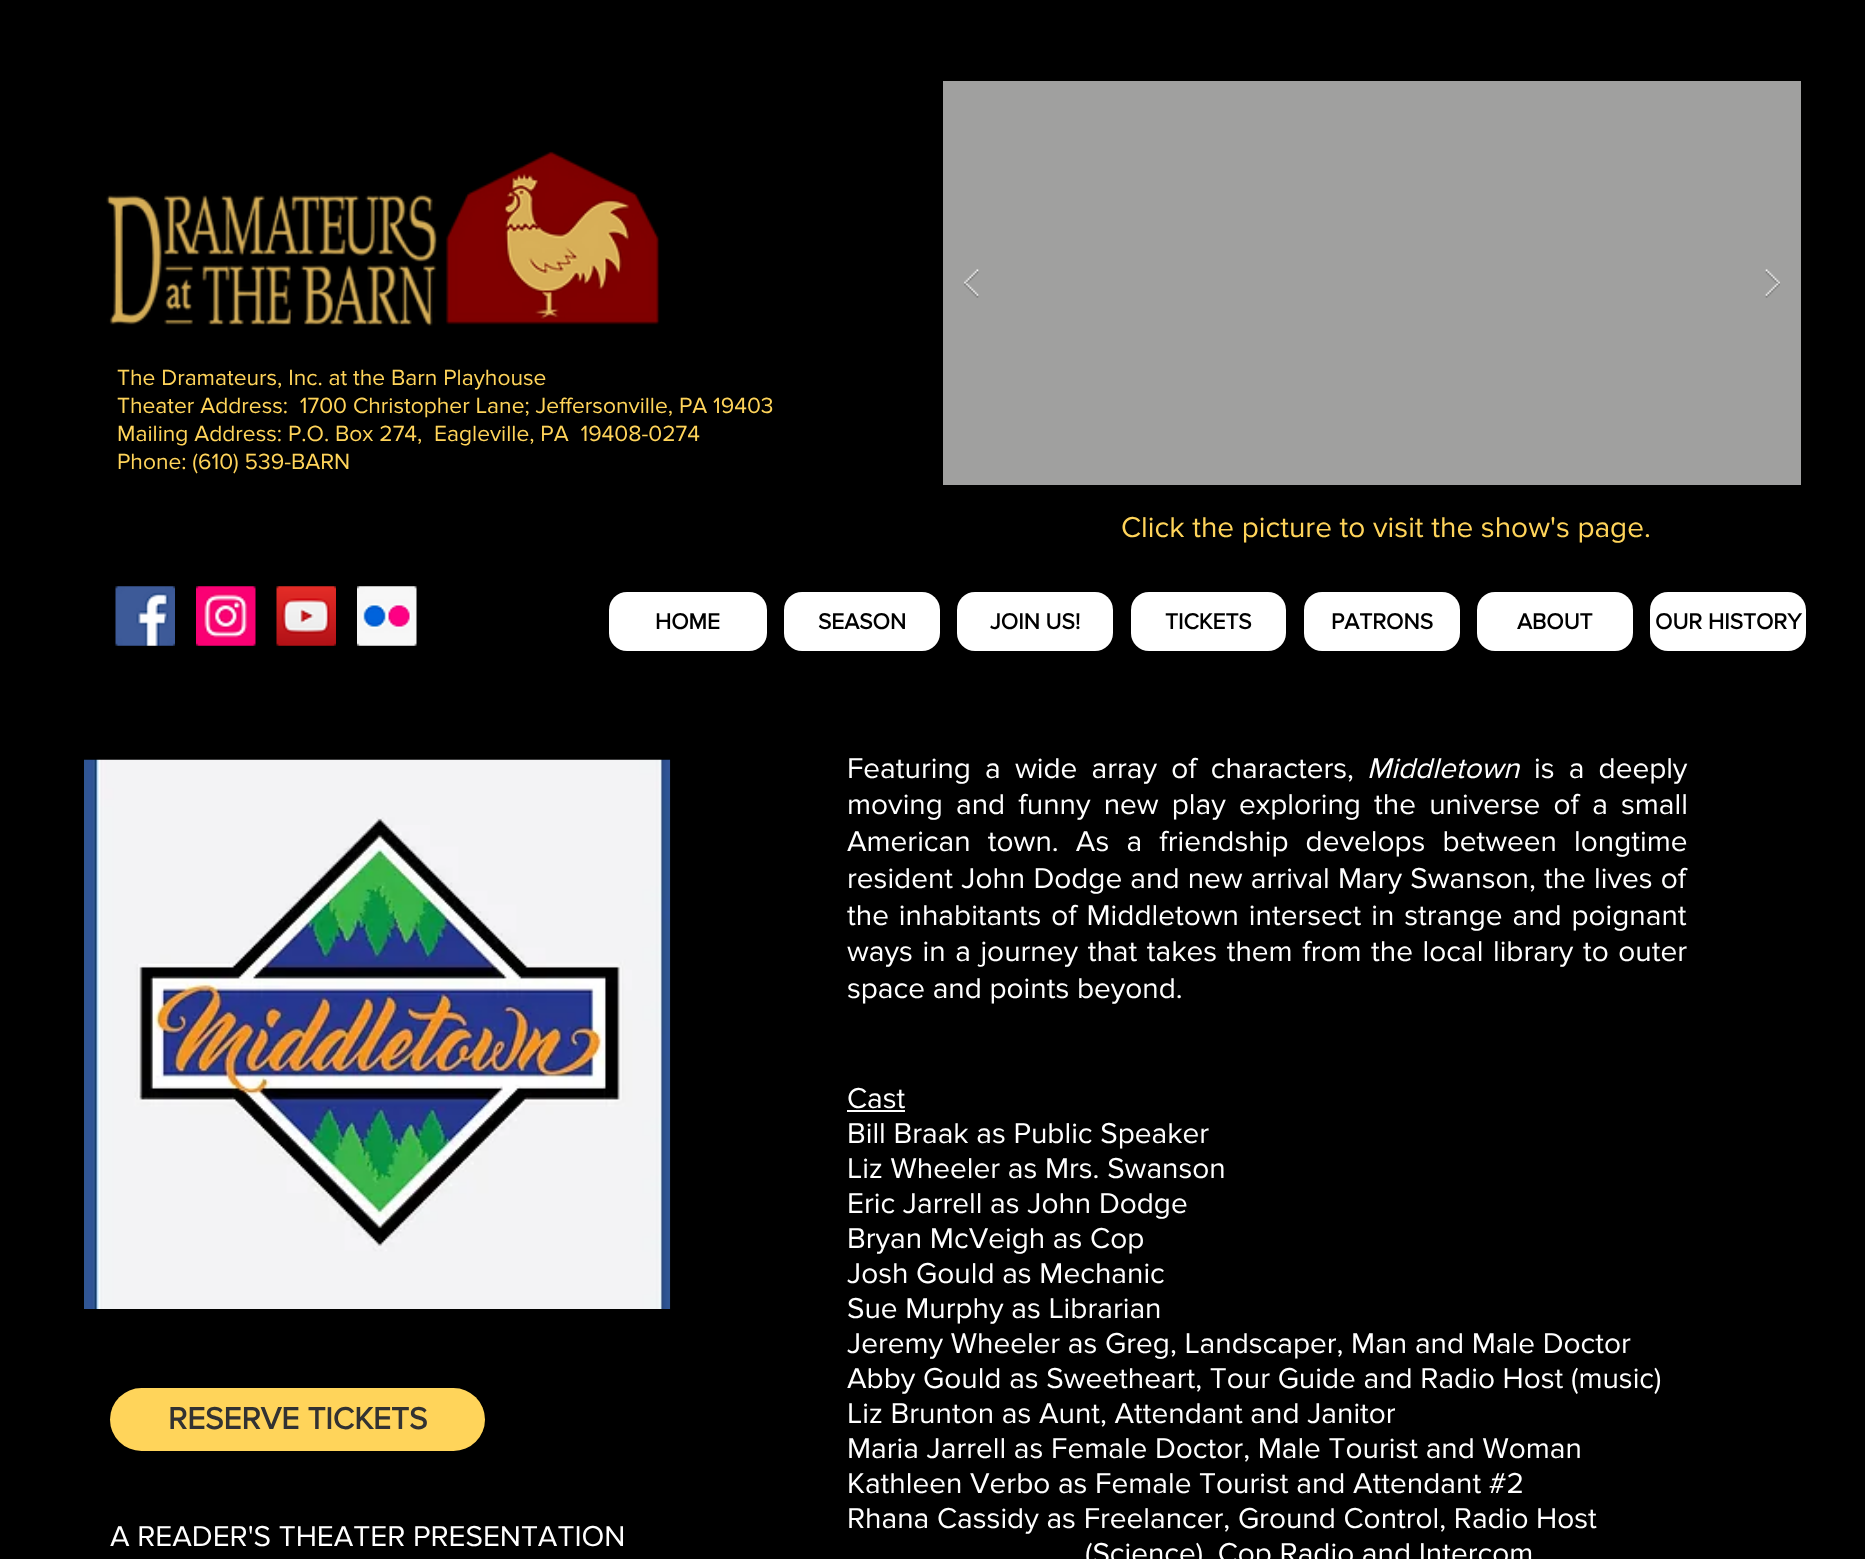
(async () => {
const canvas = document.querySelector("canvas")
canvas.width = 1865
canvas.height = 1559
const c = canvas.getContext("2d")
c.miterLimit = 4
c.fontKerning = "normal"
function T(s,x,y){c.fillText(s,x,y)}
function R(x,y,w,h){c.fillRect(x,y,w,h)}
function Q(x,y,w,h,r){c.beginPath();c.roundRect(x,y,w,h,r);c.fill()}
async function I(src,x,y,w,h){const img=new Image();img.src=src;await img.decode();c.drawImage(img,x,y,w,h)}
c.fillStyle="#000"
R(0,0,1865,1559)
await I("1.png",106,151,554,175)
c.fillStyle="#a0a09f"
R(943,81,858,404)
await I("2.png",964,269,15,29)
await I("3.png",1765,269,15,29)
c.font="22.75px 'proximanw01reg'"
c.fillStyle="#ffd45a"
T("The Dramateurs, Inc. at the Barn Playhouse",117,385)
T("Theater Address:  1700 Christopher Lane; Jeffersonville, PA 19403",117,413)
T("Mailing Address: P.O. Box 274,  Eagleville, PA  19408-0274",117,441)
T("Phone: (610) 539-BARN",117,469)
c.font="29.75px 'proximanw01reg'"
T("Click the picture to visit the show's page.",1121,537)
await I("4.png",115,586,60,60)
await I("5.png",196,586,60,60)
await I("6.png",276,586,60,60)
await I("7.png",357,586,60,60)
c.fillStyle="#fff"
Q(609,592,158,59,18)
c.font="bold 22.75px 'proximanw01reg'"
c.fillStyle="#000"
T("HOME",655,629)
c.fillStyle="#fff"
Q(784,592,156,59,18)
c.fillStyle="#000"
T("SEASON",818,629)
c.fillStyle="#fff"
Q(957,592,156,59,18)
c.fillStyle="#000"
T("JOIN US!",990,629)
c.fillStyle="#fff"
Q(1131,592,155,59,18)
c.fillStyle="#000"
T("TICKETS",1165,629)
c.fillStyle="#fff"
Q(1304,592,156,59,18)
c.fillStyle="#000"
T("PATRONS",1331,629)
c.fillStyle="#fff"
Q(1477,592,156,59,18)
c.fillStyle="#000"
T("ABOUT",1517,629)
c.fillStyle="#fff"
Q(1650,592,156,59,18)
c.fillStyle="#000"
T("OUR HISTORY",1655,629)
await I("8.png",84,759,587,550)
c.wordSpacing="6.5px"
c.font="29.75px 'proximanw01reg'"
c.fillStyle="#fff"
T("Featuring a wide array of characters,",847,778)
c.wordSpacing="0px"
c.font="italic 29.75px 'proximanw01reg'"
T("Middletown",1367,778)
c.wordSpacing="6.5px"
c.font="29.75px 'proximanw01reg'"
T("is a deeply",1534,778)
c.wordSpacing="5.5px"
T("moving and funny new play exploring the universe of a small",847,814)
c.wordSpacing="9.5px"
T("American town. As a friendship develops between longtime",847,851)
c.wordSpacing="0.5px"
T("resident John Dodge and new arrival Mary Swanson, the lives of",847,888)
c.wordSpacing="2.25px"
T("the inhabitants of Middletown intersect in strange and poignant",847,925)
c.wordSpacing="1.9px"
T("ways in a journey that takes them from the local library to outer",847,961)
c.wordSpacing="0px"
T("space and points beyond.",847,998)
T("Cast",847,1108)
R(847,1110,58,2)
T("Bill Braak as Public Speaker",847,1143)
T("Liz Wheeler as Mrs. Swanson",847,1178)
T("Eric Jarrell as John Dodge",847,1213)
T("Bryan McVeigh as Cop",847,1248)
T("Josh Gould as Mechanic",847,1283)
T("Sue Murphy as Librarian",847,1318)
T("Jeremy Wheeler as Greg, Landscaper, Man and Male Doctor",847,1353)
T("Abby Gould as Sweetheart, Tour Guide and Radio Host (music)",847,1388)
T("Liz Brunton as Aunt, Attendant and Janitor",847,1423)
T("Maria Jarrell as Female Doctor, Male Tourist and Woman",847,1458)
T("Kathleen Verbo as Female Tourist and Attendant #2",847,1493)
T("Rhana Cassidy as Freelancer, Ground Control, Radio Host",847,1528)
T("(Science), Cop Radio and Intercom",1085,1563)
c.fillStyle="#ffd45a"
Q(110,1388,375,63,31.5)
c.font="bold 31.5px 'proximanw01reg'"
c.fillStyle="#323232"
T("RESERVE TICKETS",168,1429)
c.font="29.75px 'proximanw01reg'"
c.fillStyle="#fff"
T("A READER'S THEATER PRESENTATION",110,1546)
})()
